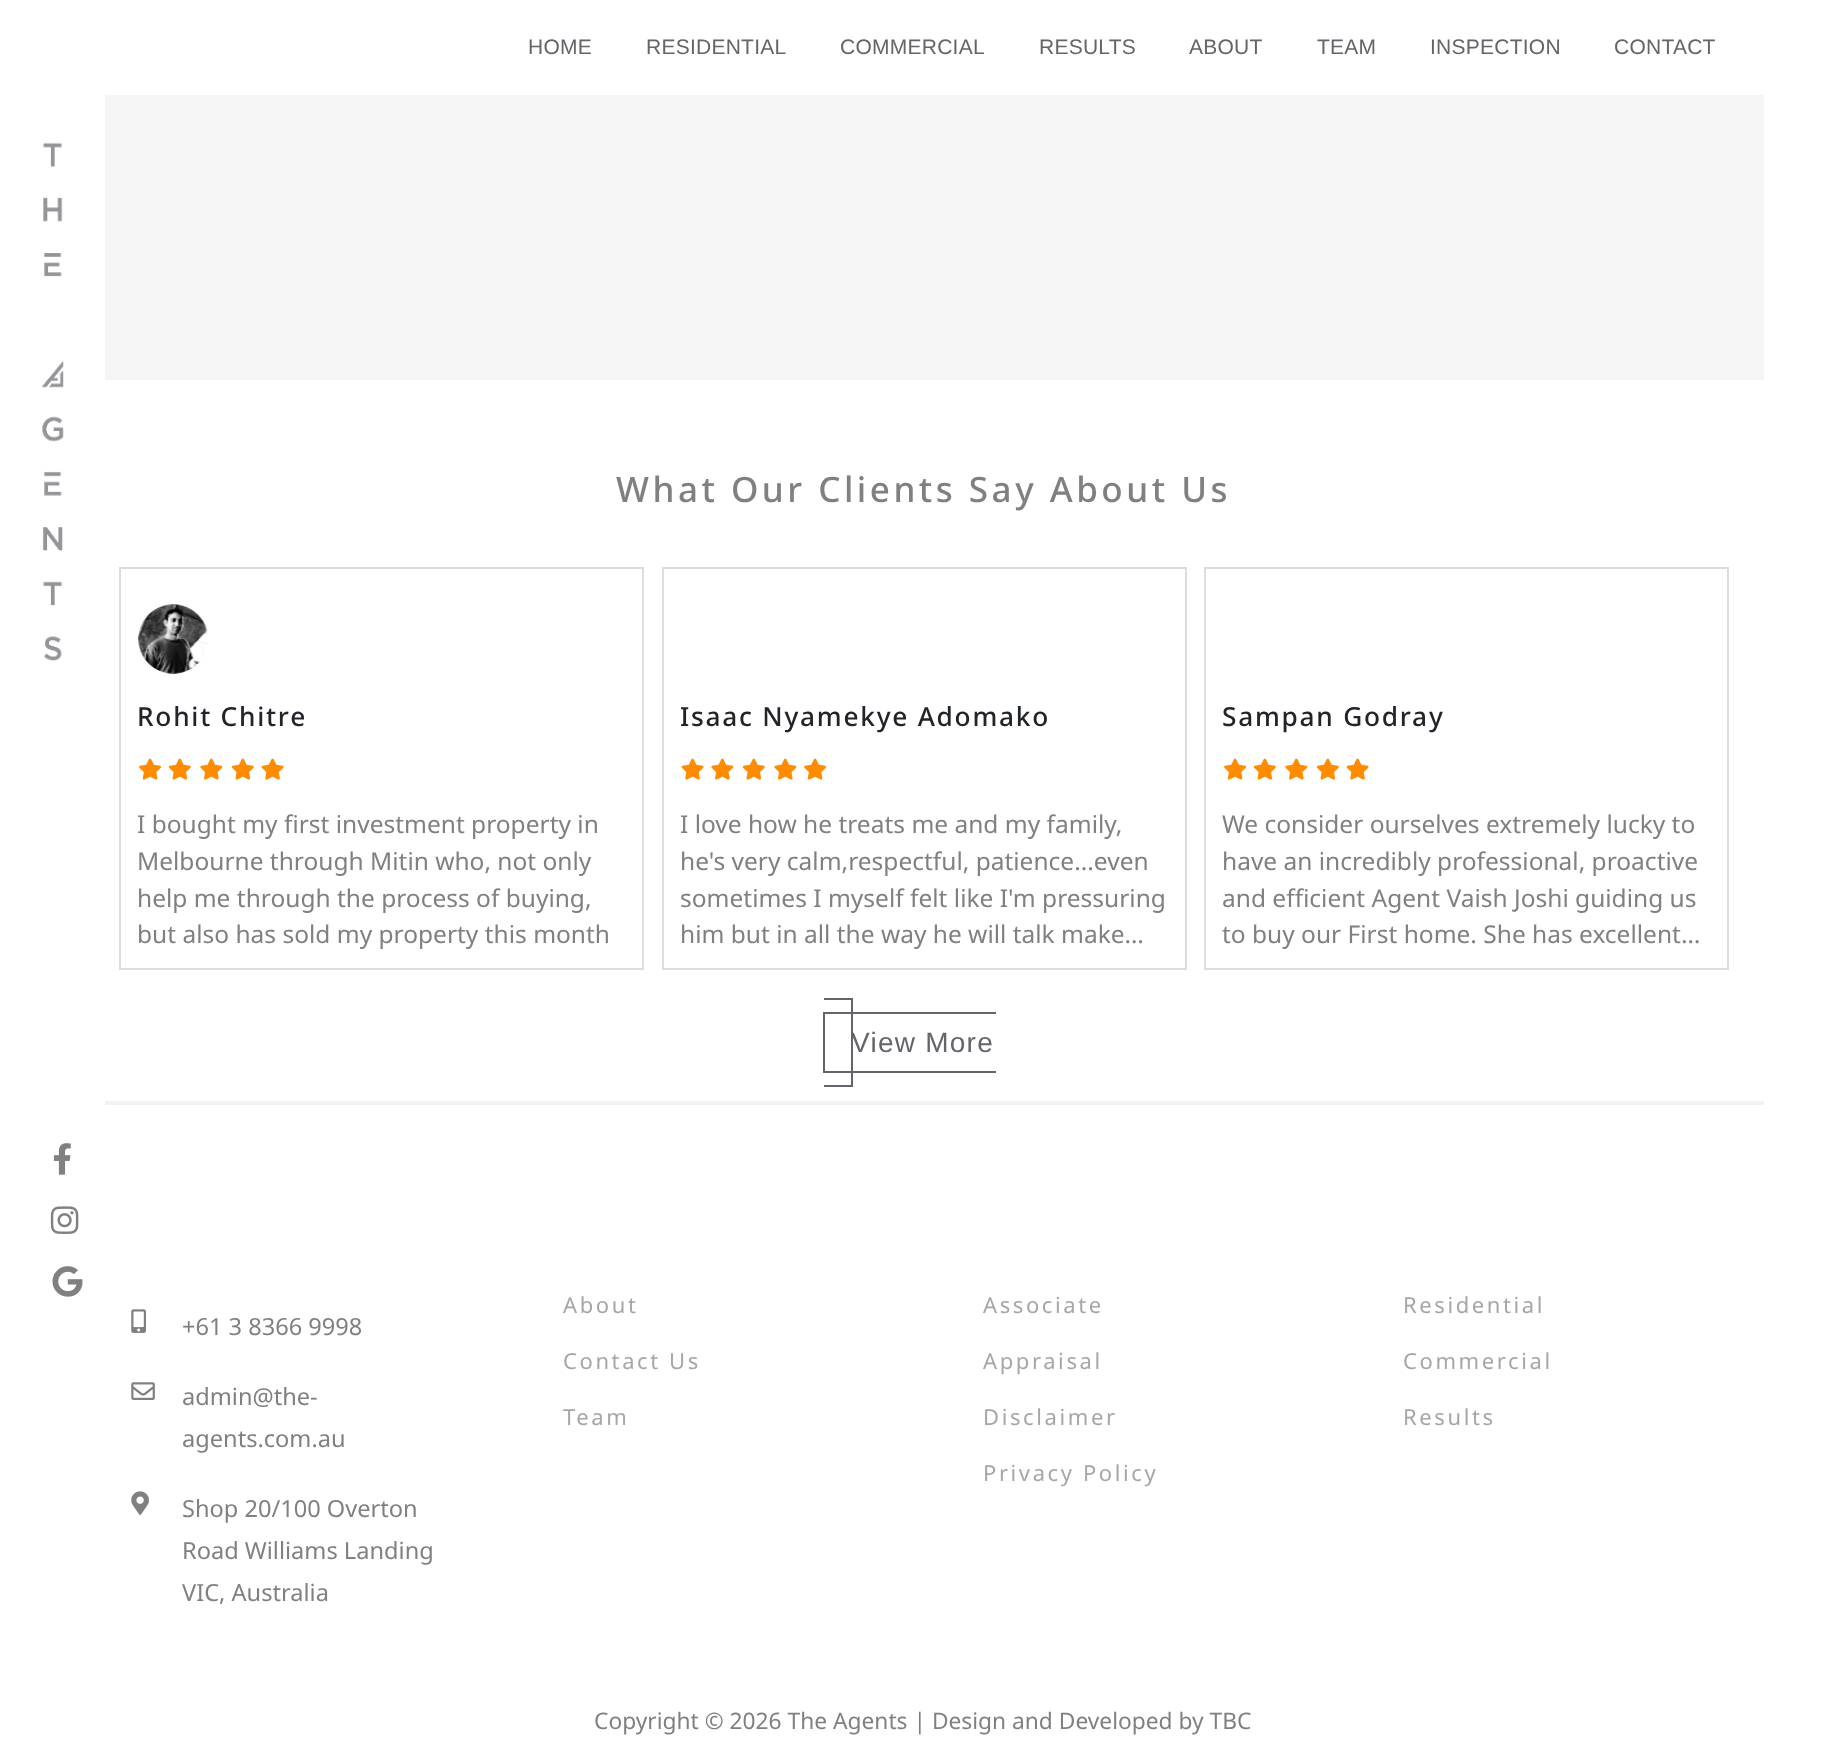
(async () => {
const canvas = document.querySelector("canvas")
canvas.width = 1846
canvas.height = 1757
const c = canvas.getContext("2d")
c.miterLimit = 4
c.fontKerning = "normal"
function T(s,x,y){c.fillText(s,x,y)}
function R(x,y,w,h){c.fillRect(x,y,w,h)}
async function I(src,x,y,w,h){const img=new Image();img.src=src;await img.decode();c.drawImage(img,x,y,w,h)}
c.fillStyle="#fff"
R(0,0,1846,1757)
c.letterSpacing="0.25px"
c.font="21px Liberation Sans"
c.fillStyle="#64656a"
T("HOME",528,54)
T("RESIDENTIAL",646,54)
T("COMMERCIAL",840,54)
T("RESULTS",1039,54)
T("ABOUT",1189,54)
T("TEAM",1317,54)
T("INSPECTION",1430,54)
T("CONTACT",1614,54)
await I("1.png",41,142,23,519)
await I("2.png",53,1143,18,32)
await I("3.png",50,1206,29,28)
await I("4.png",52,1266,31,31)
c.fillStyle="#f5f5f6"
R(105,95,1659,285)
c.letterSpacing="3.5px"
c.font="500 35px Noto Sans"
c.fillStyle="#808080"
T("What Our Clients Say About Us",616,502)
c.strokeStyle="#dcdde1"
c.lineWidth=2
c.strokeRect(120,568,523,401)
await I("5.png",138,604,70,70)
c.letterSpacing="1.75px"
c.font="500 26.25px Noto Sans"
c.fillStyle="#212529"
T("Rohit Chitre",137,726)
await I("6.png",139,758,22,22)
await I("7.png",168,758,23,22)
await I("8.png",200,758,23,22)
await I("7.png",231,758,23,22)
await I("9.png",261,758,23,22)
c.letterSpacing="0px"
c.font="24.5px Noto Sans"
c.fillStyle="#808080"
T("I bought my first investment property in",137,833)
T("Melbourne through Mitin who, not only",137,870)
T("help me through the process of buying,",137,907)
T("but also has sold my property this month",137,943)
c.strokeRect(663,568,523,401)
c.letterSpacing="1.75px"
c.font="500 26.25px Noto Sans"
c.fillStyle="#212529"
T("Isaac Nyamekye Adomako",680,726)
await I("9.png",681,758,23,22)
await I("8.png",711,758,23,22)
await I("7.png",742,758,23,22)
await I("8.png",774,758,23,22)
await I("6.png",804,758,22,22)
c.save()
c.beginPath()
c.rect(681,805,486,147)
c.clip()
c.letterSpacing="0px"
c.font="24.5px Noto Sans"
c.fillStyle="#808080"
T("I love how he treats me and my family,",680,833)
c.restore()
c.letterSpacing="0px"
c.font="24.5px Noto Sans"
c.fillStyle="#808080"
T("he's very calm,respectful, patience...even",680,870)
T("sometimes I myself felt like I'm pressuring",680,907)
T("him but in all the way he will talk make…",680,943)
c.strokeRect(1205,568,523,401)
c.letterSpacing="1.75px"
c.font="500 26.25px Noto Sans"
c.fillStyle="#212529"
T("Sampan Godray",1222,726)
await I("6.png",1224,758,22,22)
await I("7.png",1253,758,23,22)
await I("8.png",1285,758,23,22)
await I("7.png",1316,758,23,22)
await I("9.png",1346,758,23,22)
c.letterSpacing="0px"
c.font="24.5px Noto Sans"
c.fillStyle="#808080"
T("We consider ourselves extremely lucky to",1222,833)
T("have an incredibly professional, proactive",1222,870)
T("and efficient Agent Vaish Joshi guiding us",1222,907)
T("to buy our First home. She has excellent…",1222,943)
c.fillStyle="#64656a"
R(823,1012,173,2)
R(823,1071,173,2)
R(824,998,28,2)
R(851,998,2,89)
c.letterSpacing="1.25px"
c.font="28px Liberation Sans"
T("View More",851,1052)
R(823,1012,2,61)
R(824,1085,28,2)
c.fillStyle="#f1f2f6"
R(105,1101,1659,4)
await I("10.png",131,1309,15,24)
c.letterSpacing="0px"
c.font="23.6px Noto Sans"
c.fillStyle="#808080"
T("+61 3 8366 9998",182,1335)
await I("11.png",131,1382,24,18)
T("admin@the-",182,1405)
T("agents.com.au",182,1447)
await I("12.png",131,1491,18,24)
T("Shop 20/100 Overton",182,1517)
T("Road Williams Landing",182,1559)
T("VIC, Australia",182,1601)
c.letterSpacing="2.6px"
c.font="22px Noto Sans"
c.fillStyle="#a6a6a6"
T("About",563,1313)
T("Contact Us",563,1369)
T("Team",563,1425)
T("Associate",983,1313)
T("Appraisal",983,1369)
T("Disclaimer",983,1425)
T("Privacy Policy",983,1481)
T("Residential",1403,1313)
T("Commercial",1403,1369)
T("Results",1403,1425)
c.letterSpacing="0px"
c.font="22.75px Noto Sans"
c.fillStyle="#808080"
T("Copyright © 2026 The Agents | Design and Developed by TBC",594,1729)
})()
